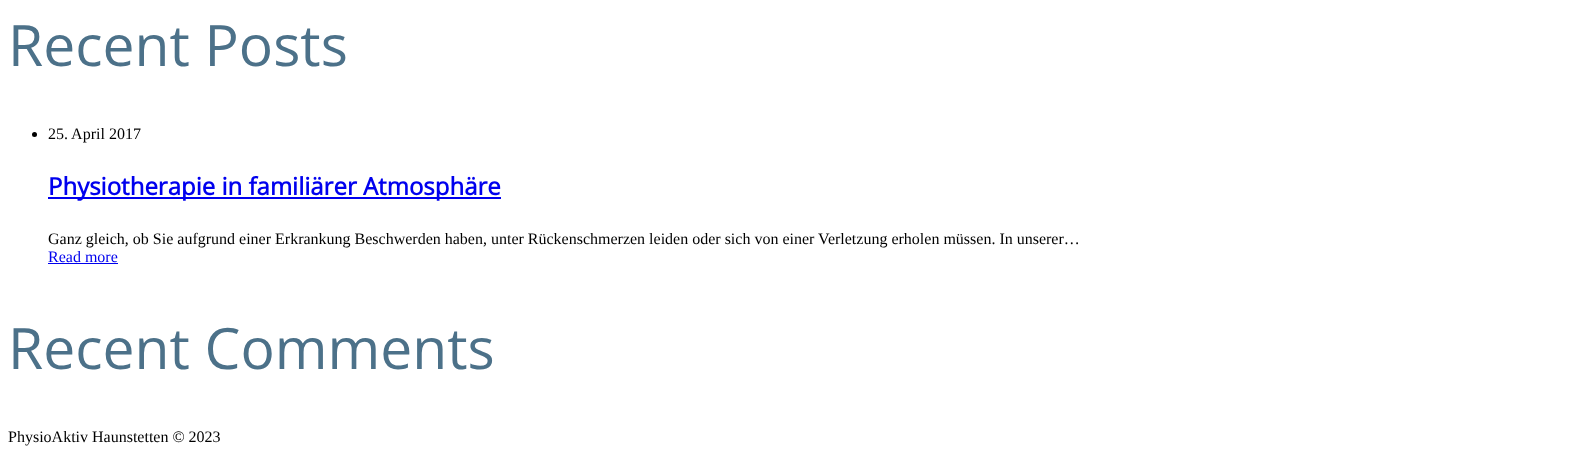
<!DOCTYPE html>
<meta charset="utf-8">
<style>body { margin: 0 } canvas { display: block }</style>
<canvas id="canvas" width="1572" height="462"></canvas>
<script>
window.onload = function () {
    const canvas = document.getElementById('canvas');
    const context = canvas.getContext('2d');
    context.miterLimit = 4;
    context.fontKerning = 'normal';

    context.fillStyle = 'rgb(255, 255, 255)';
    context.fillRect(0, 0, 1572, 462);
    context.fillStyle = 'rgb(0, 0, 0)';
    context.beginPath();
    context.arc(34.5, 134.5, 2.5, 0, 2 * Math.PI);
    context.fill();
    context.fillStyle = 'rgb(0, 0, 238)';
    context.fillRect(48, 197, 453, 2);
    context.fillRect(48, 263, 70, 1);
    context.font = '57px Open Sans';
    context.fillStyle = 'rgb(76, 113, 137)';
    context.fillText('Recent Posts', 8, 66);
    context.font = '16px Liberation Serif';
    context.fillStyle = 'rgb(0, 0, 0)';
    context.fillText('25. April 2017', 48, 139);
    context.font = 'bold 24px Open Sans';
    context.fillStyle = 'rgb(0, 0, 238)';
    context.fillText('Physiotherapie in familiärer Atmosphäre', 48, 195);
    context.font = '16px Liberation Serif';
    context.fillStyle = 'rgb(0, 0, 0)';
    context.fillText('Ganz gleich, ob Sie aufgrund einer Erkrankung Beschwerden haben, unter Rückenschmerzen leiden oder sich von einer Verletzung erholen müssen. In unserer…', 48, 244);
    context.fillStyle = 'rgb(0, 0, 238)';
    context.fillText('Read more', 48, 262);
    context.font = '57px Open Sans';
    context.fillStyle = 'rgb(76, 113, 137)';
    context.fillText('Recent Comments', 8, 369);
    context.font = '16px Liberation Serif';
    context.fillStyle = 'rgb(0, 0, 0)';
    context.fillText('PhysioAktiv Haunstetten © 2023', 8, 442);
};
</script>
